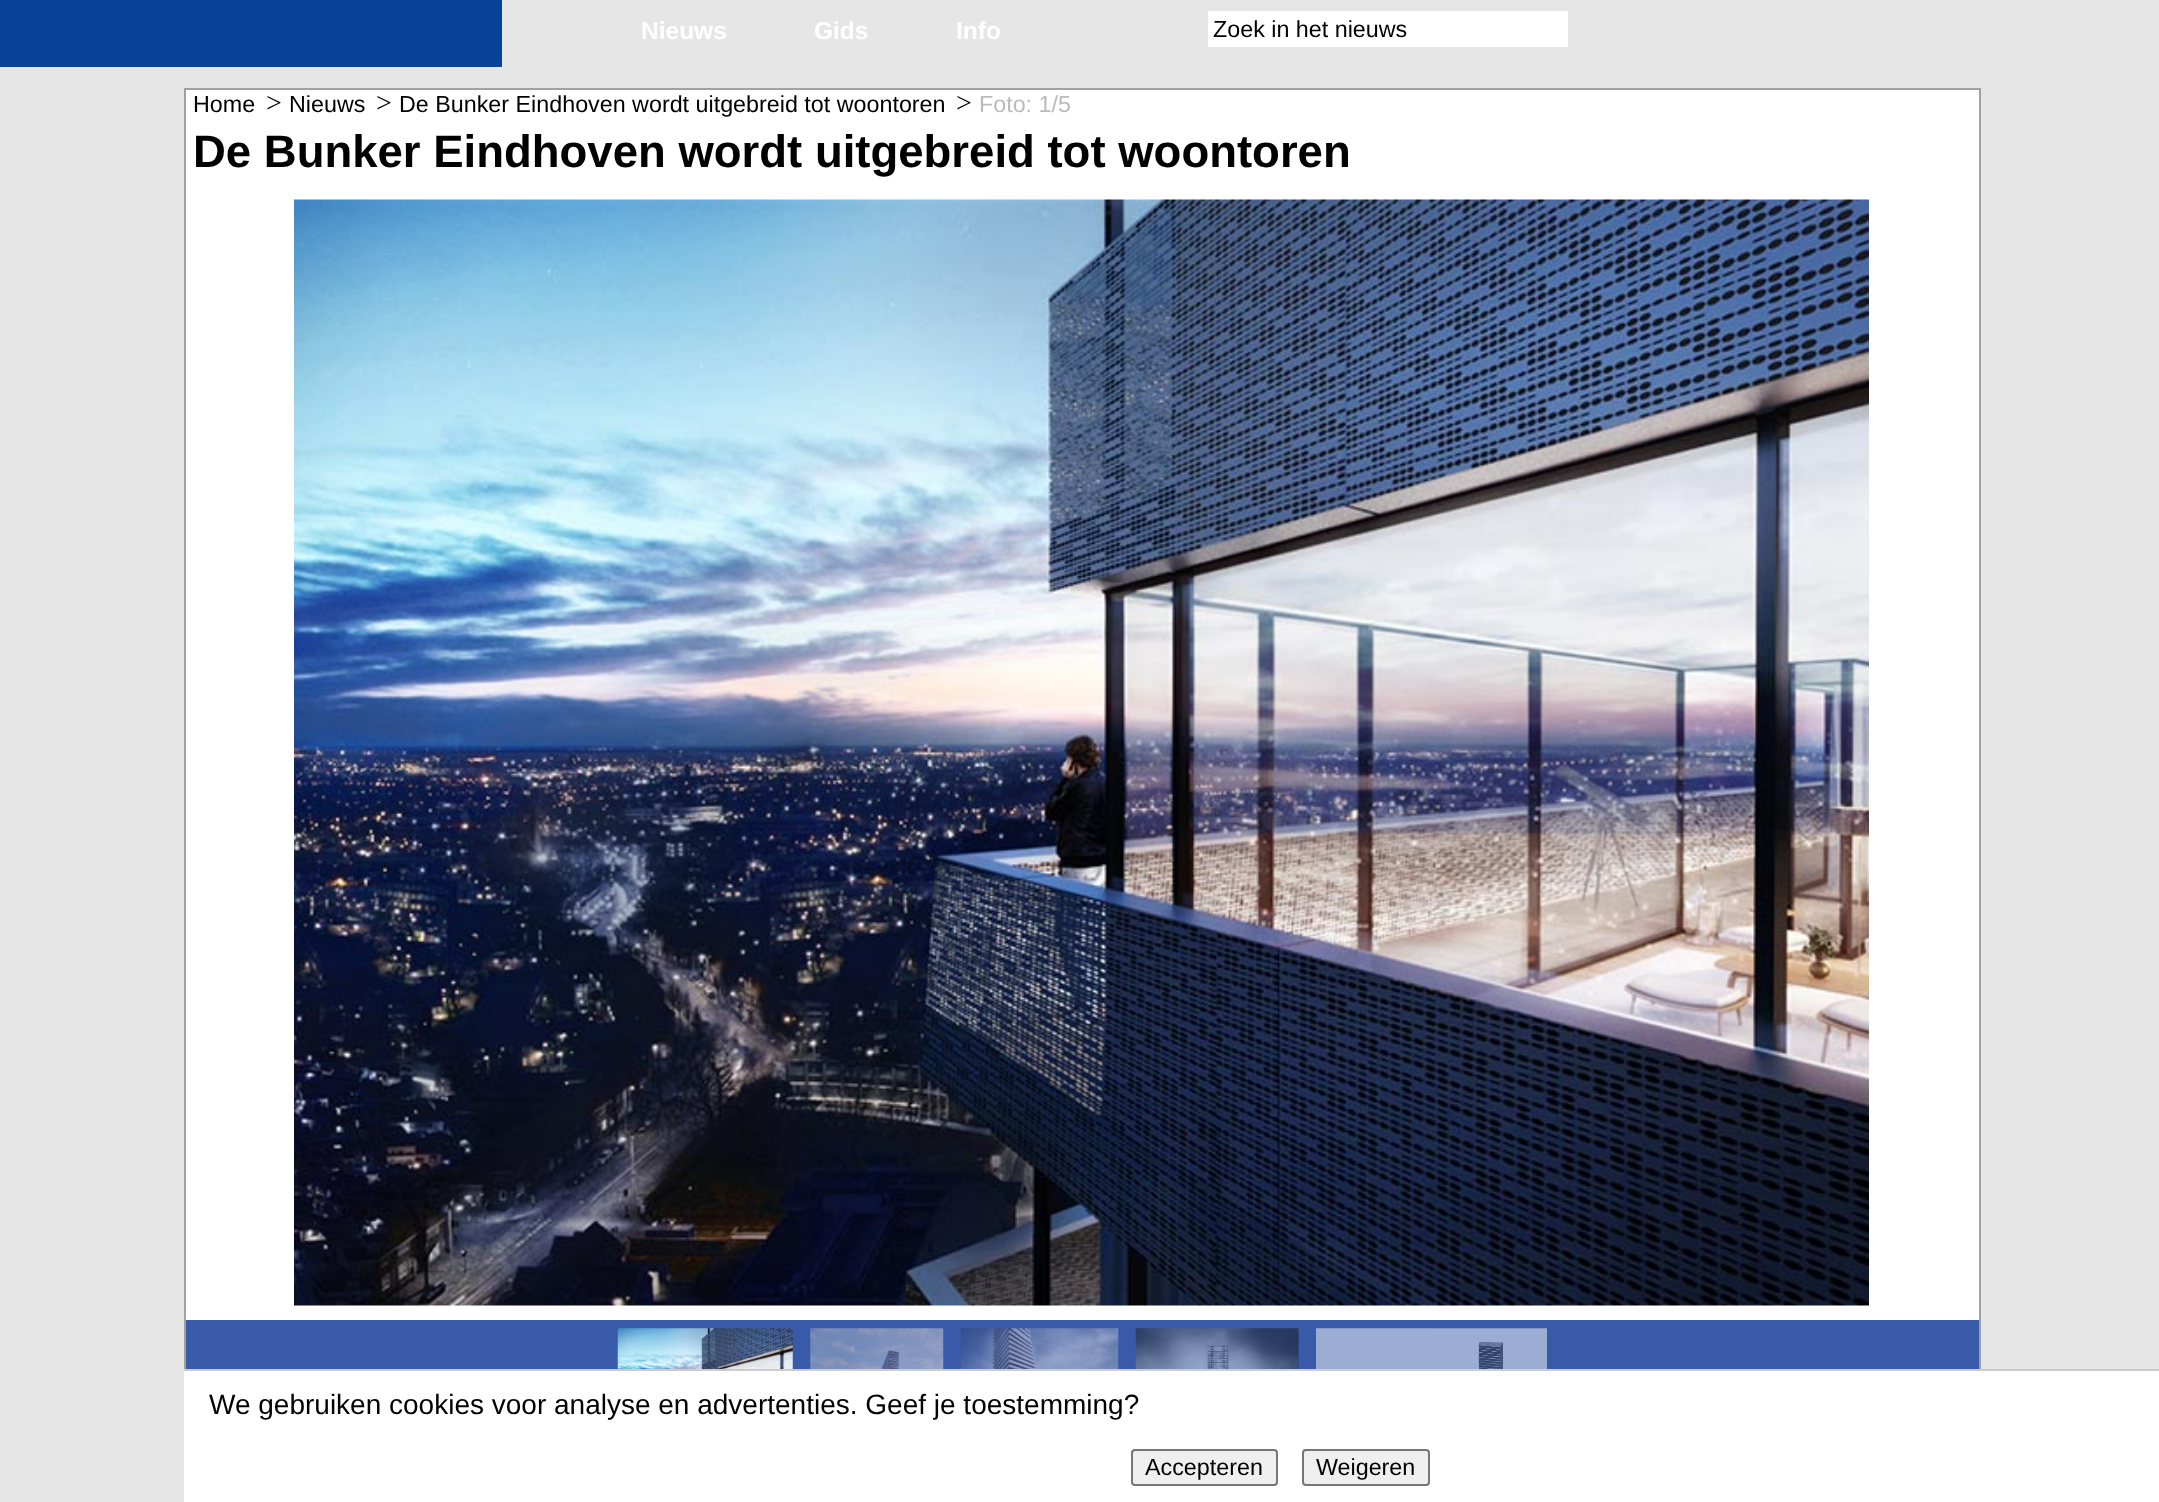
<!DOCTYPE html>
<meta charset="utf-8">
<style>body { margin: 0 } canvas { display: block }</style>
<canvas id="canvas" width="2159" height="1502"></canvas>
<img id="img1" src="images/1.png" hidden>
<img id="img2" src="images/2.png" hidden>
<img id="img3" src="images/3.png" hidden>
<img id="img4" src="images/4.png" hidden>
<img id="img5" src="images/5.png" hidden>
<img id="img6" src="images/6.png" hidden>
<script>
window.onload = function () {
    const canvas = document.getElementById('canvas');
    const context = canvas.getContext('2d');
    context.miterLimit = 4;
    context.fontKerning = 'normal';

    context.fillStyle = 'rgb(230, 230, 230)';
    context.fillRect(0, 0, 2159, 1502);
    context.fillStyle = 'rgb(9, 65, 151)';
    context.fillRect(0, 0, 502, 67);
    context.fillStyle = 'rgb(255, 255, 255)';
    context.fillRect(1208, 11, 360, 36);
    context.fillRect(186, 90, 1793, 1230);
    context.strokeStyle = 'rgb(161, 161, 161)';
    context.lineWidth = 2;
    context.strokeRect(185, 89, 1795, 1371);
    context.drawImage(document.getElementById('img1'), 294, 199, 1575, 1107);
    context.fillStyle = 'rgb(56, 90, 168)';
    context.fillRect(186, 1320, 1793, 49);
    context.drawImage(document.getElementById('img2'), 617, 1328, 176, 41);
    context.drawImage(document.getElementById('img3'), 810, 1328, 134, 41);
    context.drawImage(document.getElementById('img4'), 960, 1328, 159, 41);
    context.drawImage(document.getElementById('img5'), 1135, 1328, 164, 41);
    context.drawImage(document.getElementById('img6'), 1316, 1328, 231, 41);
    context.fillStyle = 'rgb(255, 255, 255)';
    context.fillRect(184, 1371, 1975, 131);
    context.fillStyle = 'rgb(204, 204, 204)';
    context.fillRect(184, 1369, 1975, 2);
    context.fillStyle = 'rgb(239, 239, 239)';
    context.beginPath();
    context.roundRect(1132, 1450, 145, 35, 3);
    context.fill();
    context.strokeStyle = 'rgb(118, 118, 118)';
    context.stroke();
    context.beginPath();
    context.roundRect(1303, 1450, 126, 35, 3);
    context.fill();
    context.stroke();
    context.font = 'bold 24.5px Liberation Sans';
    context.fillStyle = 'rgb(255, 255, 255)';
    context.fillText('Nieuws', 641, 39);
    context.fillText('Gids', 814, 39);
    context.fillText('Info', 956, 39);
    context.font = '23.3px Liberation Sans';
    context.fillStyle = 'rgb(0, 0, 0)';
    context.fillText('Zoek in het nieuws', 1213, 37);
    context.fillText('Home', 193, 112);
    context.font = '28px Liberation Serif';
    context.fillText('>', 266, 112);
    context.font = '23.3px Liberation Sans';
    context.fillText('Nieuws', 289, 112);
    context.font = '28px Liberation Serif';
    context.fillText('>', 376, 112);
    context.font = '23.3px Liberation Sans';
    context.fillText('De Bunker Eindhoven wordt uitgebreid tot woontoren', 399, 112);
    context.font = '28px Liberation Serif';
    context.fillText('>', 956, 112);
    context.font = '23.3px Liberation Sans';
    context.fillStyle = 'rgb(187, 187, 187)';
    context.fillText('Foto: 1/5', 979, 112);
    context.font = 'bold 45.5px Liberation Sans';
    context.fillStyle = 'rgb(0, 0, 0)';
    context.fillText('De Bunker Eindhoven wordt uitgebreid tot woontoren', 193, 167);
    context.font = '28px Liberation Sans';
    context.fillText('We gebruiken cookies voor analyse en advertenties. Geef je toestemming?', 209, 1414);
    context.font = '23.3px Liberation Sans';
    context.fillText('Accepteren', 1145, 1475);
    context.fillText('Weigeren', 1316, 1475);
};
</script>
